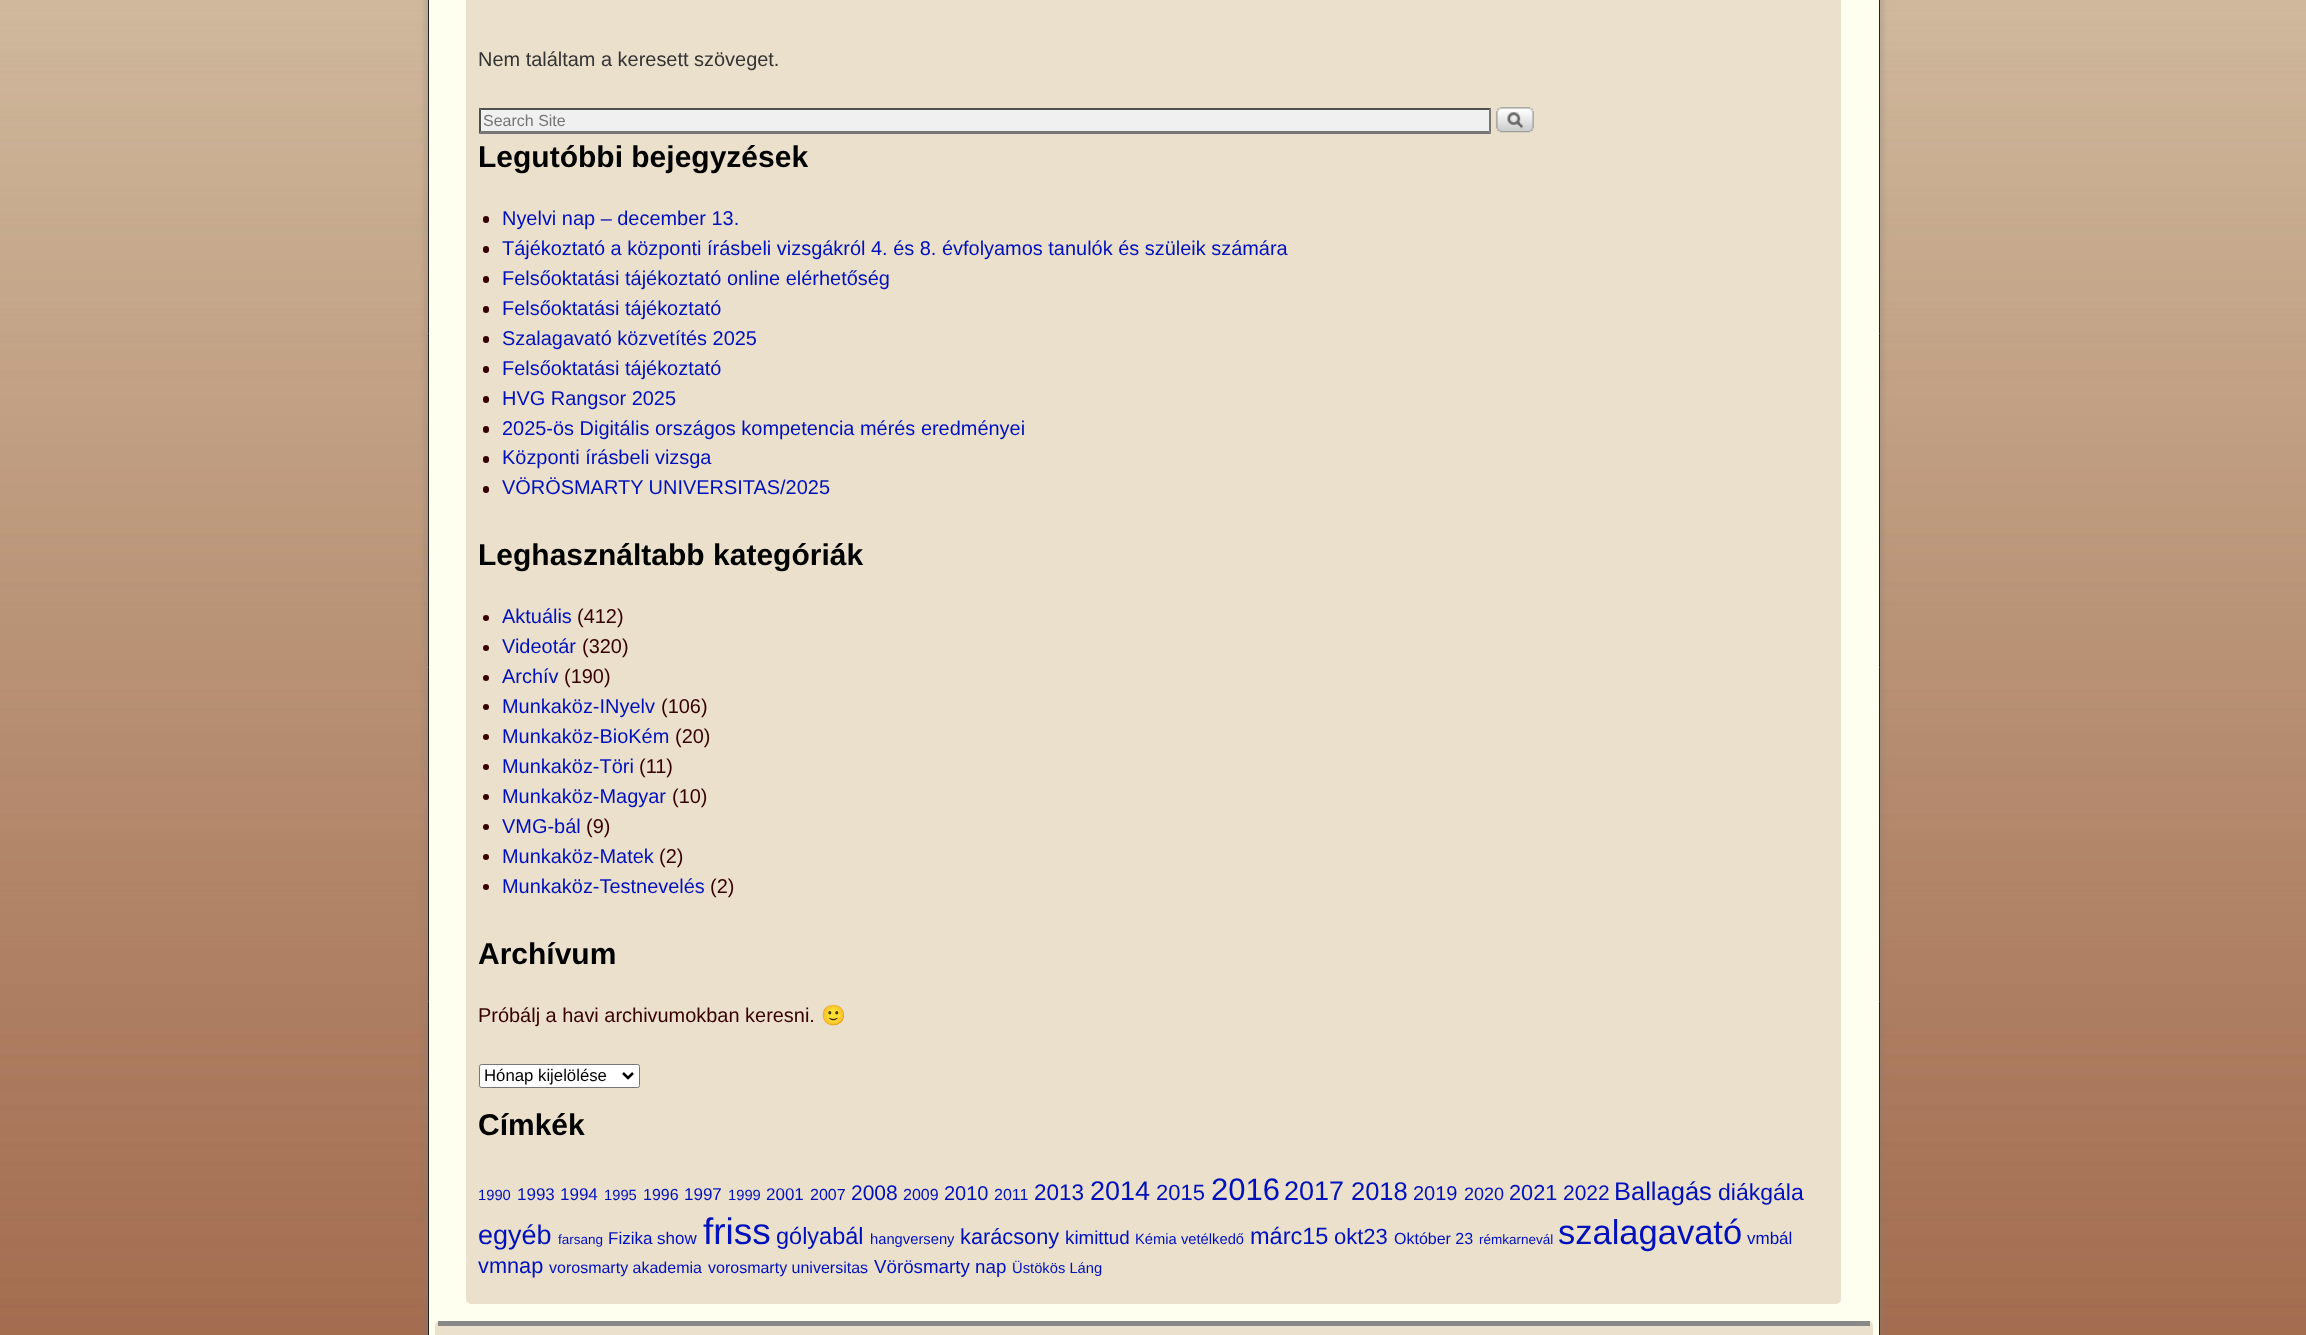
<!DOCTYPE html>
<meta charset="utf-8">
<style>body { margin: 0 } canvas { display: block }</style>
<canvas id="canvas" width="2306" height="1335"></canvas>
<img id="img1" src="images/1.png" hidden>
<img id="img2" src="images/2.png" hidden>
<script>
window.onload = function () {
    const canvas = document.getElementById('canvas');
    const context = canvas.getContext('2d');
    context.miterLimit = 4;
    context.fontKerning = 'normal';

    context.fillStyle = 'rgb(255, 255, 255)';
    context.fillRect(0, 0, 2306, 1335);
    context.drawImage(document.getElementById('img1'), 0, 0, 2306, 1335);
    context.fillStyle = 'rgba(127, 127, 127, 0.25)';
    context.filter = 'blur(2px)';
    context.beginPath();
    context.roundRect(424, -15, 1460, 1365, 9);
    context.fill();
    context.filter = 'none';
    context.fillStyle = 'rgb(255, 255, 240)';
    context.beginPath();
    context.rect(428.5, -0.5, 1451, 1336);
    context.fill();
    context.strokeStyle = 'rgb(34, 34, 34)';
    context.stroke();
    context.fillStyle = 'rgb(235, 224, 204)';
    context.beginPath();
    context.roundRect(466, -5, 1375, 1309, 5);
    context.fill();
    context.fillStyle = 'rgb(240, 240, 240)';
    context.fillRect(479, 108, 1012, 26);
    context.fillStyle = 'rgb(79, 79, 79)';
    context.beginPath();
    context.moveTo(479, 108);
    context.lineTo(1491, 108);
    context.lineTo(1489, 110);
    context.lineTo(481, 110);
    context.closePath();
    context.fill();
    context.fillStyle = 'rgb(118, 118, 118)';
    context.beginPath();
    context.moveTo(1491, 107.5);
    context.lineTo(1491, 134);
    context.lineTo(1489, 131);
    context.lineTo(1489, 110);
    context.closePath();
    context.fill();
    context.beginPath();
    context.moveTo(1491, 134);
    context.lineTo(479, 134);
    context.lineTo(481, 131);
    context.lineTo(1489, 131);
    context.closePath();
    context.fill();
    context.fillStyle = 'rgb(79, 79, 79)';
    context.beginPath();
    context.moveTo(479, 134);
    context.lineTo(479, 107.5);
    context.lineTo(481, 110);
    context.lineTo(481, 131);
    context.closePath();
    context.fill();
    context.drawImage(document.getElementById('img2'), 1496, 107, 38, 26);
    context.fillStyle = 'rgb(54, 0, 0)';
    context.beginPath();
    context.roundRect(483, 216, 6, 7, 3);
    context.fill();
    context.beginPath();
    context.roundRect(483, 246, 6, 7, 3);
    context.fill();
    context.beginPath();
    context.roundRect(483, 276, 6, 7, 3);
    context.fill();
    context.beginPath();
    context.roundRect(483, 306, 6, 7, 3);
    context.fill();
    context.beginPath();
    context.roundRect(483, 336, 6, 7, 3);
    context.fill();
    context.beginPath();
    context.roundRect(483, 366, 6, 7, 3);
    context.fill();
    context.beginPath();
    context.roundRect(483, 396, 6, 7, 3);
    context.fill();
    context.beginPath();
    context.roundRect(483, 426, 6, 7, 3);
    context.fill();
    context.beginPath();
    context.roundRect(483, 456, 6, 7, 3);
    context.fill();
    context.beginPath();
    context.roundRect(483, 486, 6, 7, 3);
    context.fill();
    context.beginPath();
    context.arc(486, 618, 3, 0, 2 * Math.PI);
    context.fill();
    context.beginPath();
    context.arc(486, 648, 3, 0, 2 * Math.PI);
    context.fill();
    context.beginPath();
    context.arc(486, 678, 3, 0, 2 * Math.PI);
    context.fill();
    context.beginPath();
    context.arc(486, 707, 3, 0, 2 * Math.PI);
    context.fill();
    context.beginPath();
    context.arc(486, 737, 3, 0, 2 * Math.PI);
    context.fill();
    context.beginPath();
    context.arc(486, 767, 3, 0, 2 * Math.PI);
    context.fill();
    context.beginPath();
    context.arc(486, 797, 3, 0, 2 * Math.PI);
    context.fill();
    context.beginPath();
    context.arc(486, 827, 3, 0, 2 * Math.PI);
    context.fill();
    context.beginPath();
    context.arc(486, 857, 3, 0, 2 * Math.PI);
    context.fill();
    context.beginPath();
    context.arc(486, 887, 3, 0, 2 * Math.PI);
    context.fill();
    context.fillStyle = 'rgb(255, 255, 255)';
    context.beginPath();
    context.roundRect(479.5, 1064.5, 160, 23, 2);
    context.fill();
    context.strokeStyle = 'rgb(118, 118, 118)';
    context.stroke();
    context.beginPath();
    context.moveTo(623, 1073);
    context.lineTo(628, 1078);
    context.lineTo(633, 1073);
    context.strokeStyle = 'rgb(0, 0, 0)';
    context.lineWidth = 2.5;
    context.stroke();
    context.fillStyle = 'rgb(235, 224, 204)';
    context.beginPath();
    context.roundRect(435, 1321, 1438, 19, 5);
    context.fill();
    context.fillStyle = 'rgb(136, 136, 136)';
    context.fillRect(438, 1321, 1432, 5);
    context.font = '19.95px Liberation Sans';
    context.fillStyle = 'rgb(51, 51, 51)';
    context.fillText('Nem találtam a keresett szöveget.', 478, 66);
    context.font = '16px Liberation Sans';
    context.fillStyle = 'rgb(117, 117, 117)';
    context.fillText('Search Site', 483, 126);
    context.font = 'bold 30px Liberation Sans';
    context.fillStyle = 'rgb(0, 0, 0)';
    context.fillText('Legutóbbi bejegyzések', 478, 167);
    context.font = '19.95px Liberation Sans';
    context.fillStyle = 'rgb(0, 17, 187)';
    context.fillText('Nyelvi nap – december 13.', 502, 225);
    context.fillText('Tájékoztató a központi írásbeli vizsgákról 4. és 8. évfolyamos tanulók és szüleik számára', 502, 255);
    context.fillText('Felsőoktatási tájékoztató online elérhetőség', 502, 285);
    context.fillText('Felsőoktatási tájékoztató', 502, 315);
    context.fillText('Szalagavató közvetítés 2025', 502, 345);
    context.fillText('Felsőoktatási tájékoztató', 502, 375);
    context.fillText('HVG Rangsor 2025', 502, 405);
    context.fillText('2025-ös Digitális országos kompetencia mérés eredményei', 502, 435);
    context.fillText('Központi írásbeli vizsga', 502, 464);
    context.fillText('VÖRÖSMARTY UNIVERSITAS/2025', 502, 494);
    context.font = 'bold 30px Liberation Sans';
    context.fillStyle = 'rgb(0, 0, 0)';
    context.fillText('Leghasználtabb kategóriák', 478, 565);
    context.font = '19.95px Liberation Sans';
    context.fillStyle = 'rgb(0, 17, 187)';
    context.fillText('Aktuális', 502, 623);
    context.fillStyle = 'rgb(54, 0, 0)';
    context.fillText('(412)', 577, 623);
    context.fillStyle = 'rgb(0, 17, 187)';
    context.fillText('Videotár', 502, 653);
    context.fillStyle = 'rgb(54, 0, 0)';
    context.fillText('(320)', 582, 653);
    context.fillStyle = 'rgb(0, 17, 187)';
    context.fillText('Archív', 502, 683);
    context.fillStyle = 'rgb(54, 0, 0)';
    context.fillText('(190)', 564, 683);
    context.fillStyle = 'rgb(0, 17, 187)';
    context.fillText('Munkaköz-INyelv', 502, 713);
    context.fillStyle = 'rgb(54, 0, 0)';
    context.fillText('(106)', 661, 713);
    context.fillStyle = 'rgb(0, 17, 187)';
    context.fillText('Munkaköz-BioKém', 502, 743);
    context.fillStyle = 'rgb(54, 0, 0)';
    context.fillText('(20)', 675, 743);
    context.fillStyle = 'rgb(0, 17, 187)';
    context.fillText('Munkaköz-Töri', 502, 773);
    context.fillStyle = 'rgb(54, 0, 0)';
    context.fillText('(11)', 639, 773);
    context.fillStyle = 'rgb(0, 17, 187)';
    context.fillText('Munkaköz-Magyar', 502, 803);
    context.fillStyle = 'rgb(54, 0, 0)';
    context.fillText('(10)', 672, 803);
    context.fillStyle = 'rgb(0, 17, 187)';
    context.fillText('VMG-bál', 502, 833);
    context.fillStyle = 'rgb(54, 0, 0)';
    context.fillText('(9)', 586, 833);
    context.fillStyle = 'rgb(0, 17, 187)';
    context.fillText('Munkaköz-Matek', 502, 863);
    context.fillStyle = 'rgb(54, 0, 0)';
    context.fillText('(2)', 659, 863);
    context.fillStyle = 'rgb(0, 17, 187)';
    context.fillText('Munkaköz-Testnevelés', 502, 893);
    context.fillStyle = 'rgb(54, 0, 0)';
    context.fillText('(2)', 710, 893);
    context.font = 'bold 30px Liberation Sans';
    context.fillStyle = 'rgb(0, 0, 0)';
    context.fillText('Archívum', 478, 964);
    context.font = '19.95px Liberation Sans';
    context.fillStyle = 'rgb(54, 0, 0)';
    context.fillText('Próbálj a havi archivumokban keresni.', 478, 1022);
    context.font = '19.95px Noto Color Emoji';
    context.fillText('🙂', 821, 1022);
    context.font = '16.75px Liberation Sans';
    context.fillStyle = 'rgb(0, 0, 0)';
    context.fillText('Hónap kijelölése', 484, 1081);
    context.font = 'bold 30px Liberation Sans';
    context.fillText('Címkék', 478, 1135);
    context.font = '14.75px Liberation Sans';
    context.fillStyle = 'rgb(0, 17, 187)';
    context.fillText('1990', 478, 1200);
    context.font = '17px Liberation Sans';
    context.fillText('1993', 517, 1200);
    context.fillText('1994', 560, 1200);
    context.font = '14.75px Liberation Sans';
    context.fillText('1995', 604, 1200);
    context.font = '16px Liberation Sans';
    context.fillText('1996', 643, 1200);
    context.font = '17px Liberation Sans';
    context.fillText('1997', 684, 1200);
    context.font = '14.75px Liberation Sans';
    context.fillText('1999', 728, 1200);
    context.font = '17px Liberation Sans';
    context.fillText('2001', 766, 1200);
    context.font = '16px Liberation Sans';
    context.fillText('2007', 810, 1200);
    context.font = '21px Liberation Sans';
    context.fillText('2008', 851, 1200);
    context.font = '16px Liberation Sans';
    context.fillText('2009', 903, 1200);
    context.font = '20px Liberation Sans';
    context.fillText('2010', 944, 1200);
    context.font = '16px Liberation Sans';
    context.fillText('2011', 994, 1200);
    context.font = '22.5px Liberation Sans';
    context.fillText('2013', 1034, 1200);
    context.font = '27px Liberation Sans';
    context.fillText('2014', 1090, 1200);
    context.font = '22px Liberation Sans';
    context.fillText('2015', 1156, 1200);
    context.font = '31px Liberation Sans';
    context.fillText('2016', 1211, 1200);
    context.font = '27px Liberation Sans';
    context.fillText('2017', 1284, 1200);
    context.font = '25.5px Liberation Sans';
    context.fillText('2018', 1351, 1200);
    context.font = '20px Liberation Sans';
    context.fillText('2019', 1413, 1200);
    context.font = '18px Liberation Sans';
    context.fillText('2020', 1464, 1200);
    context.font = '21.75px Liberation Sans';
    context.fillText('2021', 1509, 1200);
    context.font = '21px Liberation Sans';
    context.fillText('2022', 1563, 1200);
    context.font = '25.5px Liberation Sans';
    context.fillText('Ballagás', 1614, 1200);
    context.font = '23px Liberation Sans';
    context.fillText('diákgála', 1718, 1200);
    context.font = '27px Liberation Sans';
    context.fillText('egyéb', 478, 1244);
    context.font = '13.5px Liberation Sans';
    context.fillText('farsang', 558, 1244);
    context.font = '17px Liberation Sans';
    context.fillText('Fizika show', 608, 1244);
    context.font = '37px Liberation Sans';
    context.fillText('friss', 703, 1244);
    context.font = '23.5px Liberation Sans';
    context.fillText('gólyabál', 776, 1244);
    context.font = '14.75px Liberation Sans';
    context.fillText('hangverseny', 870, 1244);
    context.font = '21.75px Liberation Sans';
    context.fillText('karácsony', 960, 1244);
    context.font = '18.75px Liberation Sans';
    context.fillText('kimittud', 1065, 1244);
    context.font = '14.75px Liberation Sans';
    context.fillText('Kémia vetélkedő', 1135, 1244);
    context.font = '23.5px Liberation Sans';
    context.fillText('márc15', 1250, 1244);
    context.font = '22px Liberation Sans';
    context.fillText('okt23', 1334, 1244);
    context.font = '16px Liberation Sans';
    context.fillText('Október 23', 1394, 1244);
    context.font = '13.5px Liberation Sans';
    context.fillText('rémkarnevál', 1479, 1244);
    context.font = '34.5px Liberation Sans';
    context.fillText('szalagavató', 1558, 1244);
    context.font = '17px Liberation Sans';
    context.fillText('vmbál', 1747, 1244);
    context.font = '21.75px Liberation Sans';
    context.fillText('vmnap', 478, 1273);
    context.font = '16px Liberation Sans';
    context.fillText('vorosmarty akademia', 549, 1273);
    context.fillText('vorosmarty universitas', 708, 1273);
    context.font = '18.75px Liberation Sans';
    context.fillText('Vörösmarty nap', 874, 1273);
    context.font = '14.75px Liberation Sans';
    context.fillText('Üstökös Láng', 1012, 1273);
};
</script>
